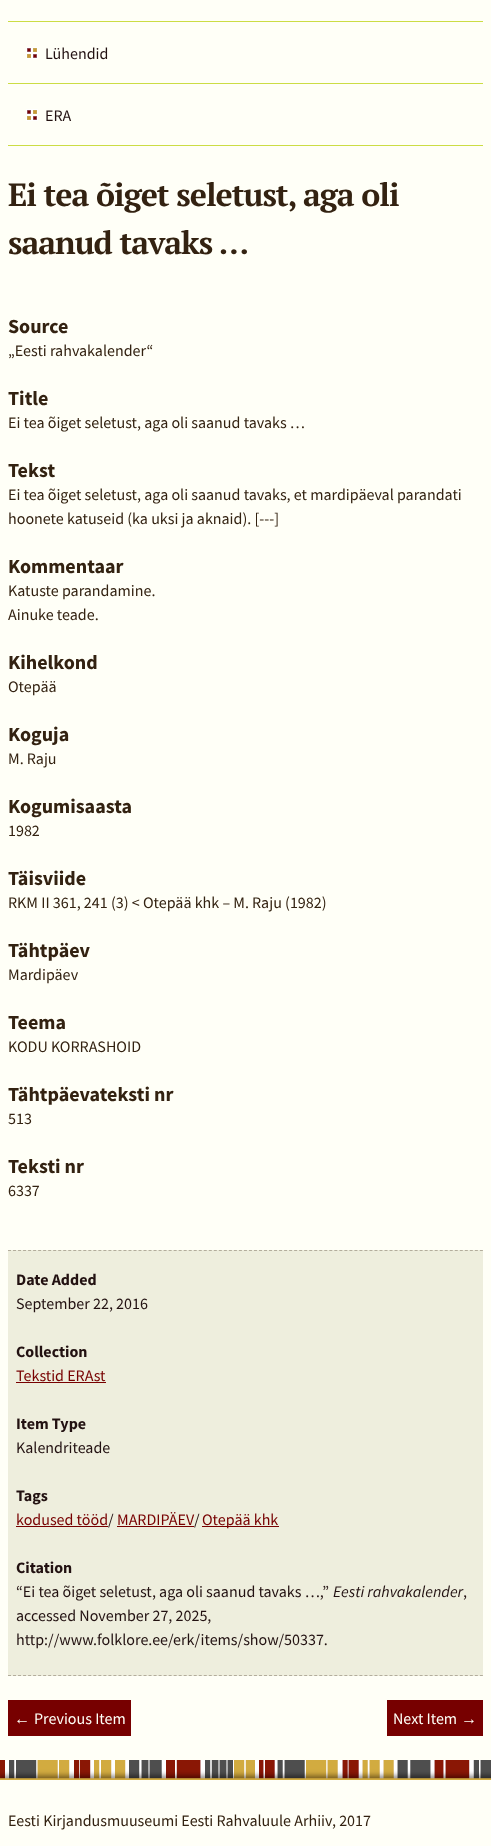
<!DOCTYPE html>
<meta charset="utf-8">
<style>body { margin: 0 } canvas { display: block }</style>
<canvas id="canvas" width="491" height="1846"></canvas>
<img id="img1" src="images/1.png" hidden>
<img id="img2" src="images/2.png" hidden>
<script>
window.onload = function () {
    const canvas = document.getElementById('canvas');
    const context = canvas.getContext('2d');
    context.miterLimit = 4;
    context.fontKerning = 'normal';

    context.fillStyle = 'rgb(255, 255, 247)';
    context.fillRect(0, 0, 491, 1846);
    context.fillStyle = 'rgb(204, 221, 68)';
    context.fillRect(8, 21, 475, 1);
    context.fillRect(8, 83, 475, 1);
    context.drawImage(document.getElementById('img1'), 26, 47, 12, 12);
    context.fillRect(8, 145, 475, 1);
    context.drawImage(document.getElementById('img1'), 26, 109, 12, 12);
    context.fillStyle = 'rgb(238, 238, 221)';
    context.fillRect(8, 1250, 475, 426);
    context.beginPath();
    context.moveTo(8, 1250.5);
    context.lineTo(483, 1250.5);
    context.strokeStyle = 'rgb(179, 173, 156)';
    context.setLineDash([3, 2.02]);
    context.stroke();
    context.beginPath();
    context.moveTo(8, 1675.5);
    context.lineTo(483, 1675.5);
    context.stroke();
    context.fillStyle = 'rgb(119, 0, 0)';
    context.fillRect(16, 1382, 90, 1);
    context.fillRect(16, 1526, 92, 1);
    context.fillRect(117, 1526, 77, 1);
    context.fillRect(202, 1526, 77, 1);
    context.fillRect(8, 1700, 123, 36);
    context.fillRect(387, 1700, 96, 36);
    context.drawImage(document.getElementById('img2'), 0, 1760, 491, 20);
    context.font = '16px Source Sans Pro';
    context.fillStyle = 'rgb(34, 17, 17)';
    context.fillText('Lühendid', 45, 59);
    context.fillText('ERA', 45, 121);
    context.letterSpacing = '-1px';
    context.font = 'bold 32px PT Serif';
    context.fillStyle = 'rgb(51, 34, 17)';
    context.fillText('Ei tea õiget seletust, aga oli', 8, 206);
    context.fillText('saanud tavaks …', 8, 254);
    context.letterSpacing = '0px';
    context.font = 'bold 20px Source Sans Pro';
    context.fillText('Source', 8, 333);
    context.font = '16px Source Sans Pro';
    context.fillText('„Eesti rahvakalender“', 8, 356);
    context.font = 'bold 20px Source Sans Pro';
    context.fillText('Title', 8, 405);
    context.font = '16px Source Sans Pro';
    context.fillText('Ei tea õiget seletust, aga oli saanud tavaks …', 8, 428);
    context.font = 'bold 20px Source Sans Pro';
    context.fillText('Tekst', 8, 477);
    context.font = '16px Source Sans Pro';
    context.fillText('Ei tea õiget seletust, aga oli saanud tavaks, et mardipäeval parandati', 8, 500);
    context.fillText('hoonete katuseid (ka uksi ja aknaid). [---]', 8, 524);
    context.font = 'bold 20px Source Sans Pro';
    context.fillText('Kommentaar', 8, 573);
    context.font = '16px Source Sans Pro';
    context.fillText('Katuste parandamine.', 8, 596);
    context.fillText('Ainuke teade.', 8, 620);
    context.font = 'bold 20px Source Sans Pro';
    context.fillText('Kihelkond', 8, 669);
    context.font = '16px Source Sans Pro';
    context.fillText('Otepää', 8, 692);
    context.font = 'bold 20px Source Sans Pro';
    context.fillText('Koguja', 8, 741);
    context.font = '16px Source Sans Pro';
    context.fillText('M. Raju', 8, 764);
    context.font = 'bold 20px Source Sans Pro';
    context.fillText('Kogumisaasta', 8, 813);
    context.font = '16px Source Sans Pro';
    context.fillText('1982', 8, 836);
    context.font = 'bold 20px Source Sans Pro';
    context.fillText('Täisviide', 8, 885);
    context.font = '16px Source Sans Pro';
    context.fillText('RKM II 361, 241 (3) < Otepää khk – M. Raju (1982)', 8, 908);
    context.font = 'bold 20px Source Sans Pro';
    context.fillText('Tähtpäev', 8, 957);
    context.font = '16px Source Sans Pro';
    context.fillText('Mardipäev', 8, 980);
    context.font = 'bold 20px Source Sans Pro';
    context.fillText('Teema', 8, 1029);
    context.font = '16px Source Sans Pro';
    context.fillText('KODU KORRASHOID', 8, 1052);
    context.font = 'bold 20px Source Sans Pro';
    context.fillText('Tähtpäevateksti nr', 8, 1101);
    context.font = '16px Source Sans Pro';
    context.fillText('513', 8, 1124);
    context.font = 'bold 20px Source Sans Pro';
    context.fillText('Teksti nr', 8, 1173);
    context.font = '16px Source Sans Pro';
    context.fillText('6337', 8, 1196);
    context.font = 'bold 16px Source Sans Pro';
    context.fillStyle = 'rgb(34, 17, 17)';
    context.fillText('Date Added', 16, 1285);
    context.font = '16px Source Sans Pro';
    context.fillText('September 22, 2016', 16, 1309);
    context.font = 'bold 16px Source Sans Pro';
    context.fillText('Collection', 16, 1357);
    context.font = '16px Source Sans Pro';
    context.fillStyle = 'rgb(119, 0, 0)';
    context.fillText('Tekstid ERAst', 16, 1381);
    context.font = 'bold 16px Source Sans Pro';
    context.fillStyle = 'rgb(34, 17, 17)';
    context.fillText('Item Type', 16, 1429);
    context.font = '16px Source Sans Pro';
    context.fillText('Kalendriteade', 16, 1453);
    context.font = 'bold 16px Source Sans Pro';
    context.fillText('Tags', 16, 1501);
    context.font = '16px Source Sans Pro';
    context.fillStyle = 'rgb(119, 0, 0)';
    context.fillText('kodused tööd', 16, 1525);
    context.fillStyle = 'rgb(34, 17, 17)';
    context.fillText('/', 108, 1525);
    context.fillStyle = 'rgb(119, 0, 0)';
    context.fillText('MARDIPÄEV', 117, 1525);
    context.fillStyle = 'rgb(34, 17, 17)';
    context.fillText('/', 194, 1525);
    context.fillStyle = 'rgb(119, 0, 0)';
    context.fillText('Otepää khk', 202, 1525);
    context.font = 'bold 16px Source Sans Pro';
    context.fillStyle = 'rgb(34, 17, 17)';
    context.fillText('Citation', 16, 1573);
    context.font = '16px Source Sans Pro';
    context.fillText('“Ei tea õiget seletust, aga oli saanud tavaks …,”', 16, 1597);
    context.font = 'italic 16px Source Sans Pro';
    context.fillText('Eesti rahvakalender', 333, 1597);
    context.font = '16px Source Sans Pro';
    context.fillText(',', 463, 1597);
    context.fillText('accessed November 27, 2025,', 16, 1621);
    context.fillText('http://www.folklore.ee/erk/items/show/50337.', 16, 1645);
    context.font = '16px Liberation Sans';
    context.fillStyle = 'rgb(255, 255, 247)';
    context.fillText('←', 14, 1724);
    context.font = '16px Source Sans Pro';
    context.fillText('Previous Item', 34, 1724);
    context.fillText('Next Item', 393, 1724);
    context.font = '16px Liberation Sans';
    context.fillText('→', 461, 1724);
    context.font = '16px Source Sans Pro';
    context.fillStyle = 'rgb(51, 34, 17)';
    context.fillText('Eesti Kirjandusmuuseumi Eesti Rahvaluule Arhiiv, 2017', 8, 1826);
};
</script>
